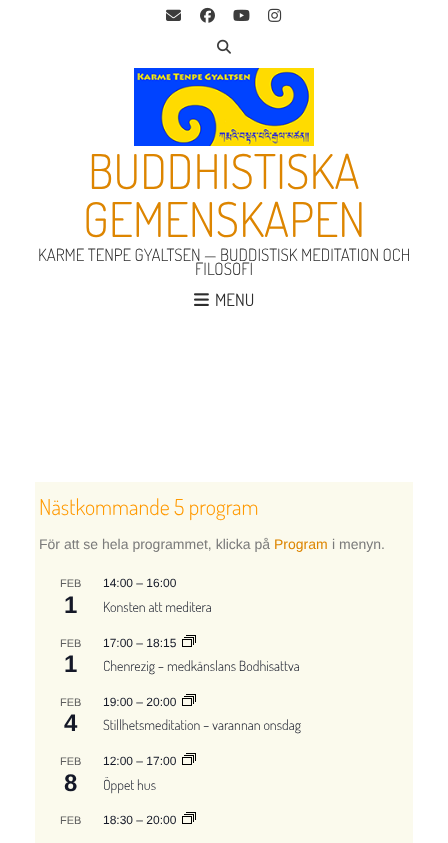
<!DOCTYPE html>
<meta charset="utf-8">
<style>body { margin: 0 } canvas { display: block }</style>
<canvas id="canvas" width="448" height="843"></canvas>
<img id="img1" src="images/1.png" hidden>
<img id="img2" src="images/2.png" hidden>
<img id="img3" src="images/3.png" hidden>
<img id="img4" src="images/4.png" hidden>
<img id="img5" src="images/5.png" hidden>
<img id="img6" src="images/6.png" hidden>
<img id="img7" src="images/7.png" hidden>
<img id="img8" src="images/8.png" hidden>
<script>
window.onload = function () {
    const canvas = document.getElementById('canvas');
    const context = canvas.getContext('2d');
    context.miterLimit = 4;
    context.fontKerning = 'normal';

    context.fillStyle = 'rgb(255, 255, 255)';
    context.fillRect(0, 0, 448, 843);
    context.drawImage(document.getElementById('img1'), 166, 9, 15, 12);
    context.drawImage(document.getElementById('img2'), 200, 7, 15, 16);
    context.drawImage(document.getElementById('img3'), 233, 9, 17, 12);
    context.drawImage(document.getElementById('img4'), 268, 8, 14, 14);
    context.drawImage(document.getElementById('img5'), 217, 39, 14, 15);
    context.drawImage(document.getElementById('img6'), 134, 68, 180, 78);
    context.drawImage(document.getElementById('img7'), 194, 293, 15, 13);
    context.fillStyle = 'rgb(251, 250, 237)';
    context.fillRect(35, 482, 378, 361);
    context.drawImage(document.getElementById('img8'), 182, 635, 14, 12);
    context.drawImage(document.getElementById('img8'), 182, 694, 14, 12);
    context.drawImage(document.getElementById('img8'), 182, 753, 14, 12);
    context.drawImage(document.getElementById('img8'), 182, 812, 14, 12);
    context.font = '300 48px Dosis';
    context.fillStyle = 'rgb(221, 133, 0)';
    context.fillText('BUDDHISTISKA', 88, 189);
    context.fillText('GEMENSKAPEN', 83, 237);
    context.font = '300 17px Dosis';
    context.fillStyle = 'rgb(45, 45, 45)';
    context.fillText('KARME TENPE GYALTSEN — BUDDISTISK MEDITATION OCH', 38, 261);
    context.fillText('FILOSOFI', 195, 275);
    context.font = '17px Dosis';
    context.fillText('MENU', 215, 306);
    context.font = '300 22px Dosis';
    context.fillStyle = 'rgb(255, 153, 0)';
    context.fillText('Nästkommande 5 program', 39, 515);
    context.font = '14px Liberation Sans';
    context.fillStyle = 'rgb(122, 122, 122)';
    context.fillText('För att se hela programmet, klicka på', 39, 549);
    context.fillStyle = 'rgb(221, 133, 0)';
    context.fillText('Program', 274, 549);
    context.fillStyle = 'rgb(122, 122, 122)';
    context.fillText('i menyn.', 332, 549);
    context.font = '11px Liberation Sans';
    context.fillStyle = 'rgb(93, 93, 93)';
    context.fillText('FEB', 60, 587);
    context.font = 'bold 24px Liberation Sans';
    context.fillStyle = 'rgb(20, 24, 39)';
    context.fillText('1', 64, 613);
    context.font = '12px Liberation Sans';
    context.fillText('14:00 – 16:00', 103, 587);
    context.font = '300 14px Dosis';
    context.fillText('Konsten att meditera', 103, 612);
    context.font = '11px Liberation Sans';
    context.fillStyle = 'rgb(93, 93, 93)';
    context.fillText('FEB', 60, 647);
    context.font = 'bold 24px Liberation Sans';
    context.fillStyle = 'rgb(20, 24, 39)';
    context.fillText('1', 64, 672);
    context.font = '12px Liberation Sans';
    context.fillText('17:00 – 18:15', 103, 647);
    context.font = '300 14px Dosis';
    context.fillText('Chenrezig – medkänslans Bodhisattva', 103, 671);
    context.font = '11px Liberation Sans';
    context.fillStyle = 'rgb(93, 93, 93)';
    context.fillText('FEB', 60, 706);
    context.font = 'bold 24px Liberation Sans';
    context.fillStyle = 'rgb(20, 24, 39)';
    context.fillText('4', 64, 731);
    context.font = '12px Liberation Sans';
    context.fillText('19:00 – 20:00', 103, 706);
    context.font = '300 14px Dosis';
    context.fillText('Stillhetsmeditation – varannan onsdag', 103, 730);
    context.font = '11px Liberation Sans';
    context.fillStyle = 'rgb(93, 93, 93)';
    context.fillText('FEB', 60, 765);
    context.font = 'bold 24px Liberation Sans';
    context.fillStyle = 'rgb(20, 24, 39)';
    context.fillText('8', 64, 791);
    context.font = '12px Liberation Sans';
    context.fillText('12:00 – 17:00', 103, 765);
    context.font = '300 14px Dosis';
    context.fillText('Öppet hus', 103, 790);
    context.font = '11px Liberation Sans';
    context.fillStyle = 'rgb(93, 93, 93)';
    context.fillText('FEB', 60, 824);
    context.font = '12px Liberation Sans';
    context.fillStyle = 'rgb(20, 24, 39)';
    context.fillText('18:30 – 20:00', 103, 824);
};
</script>
